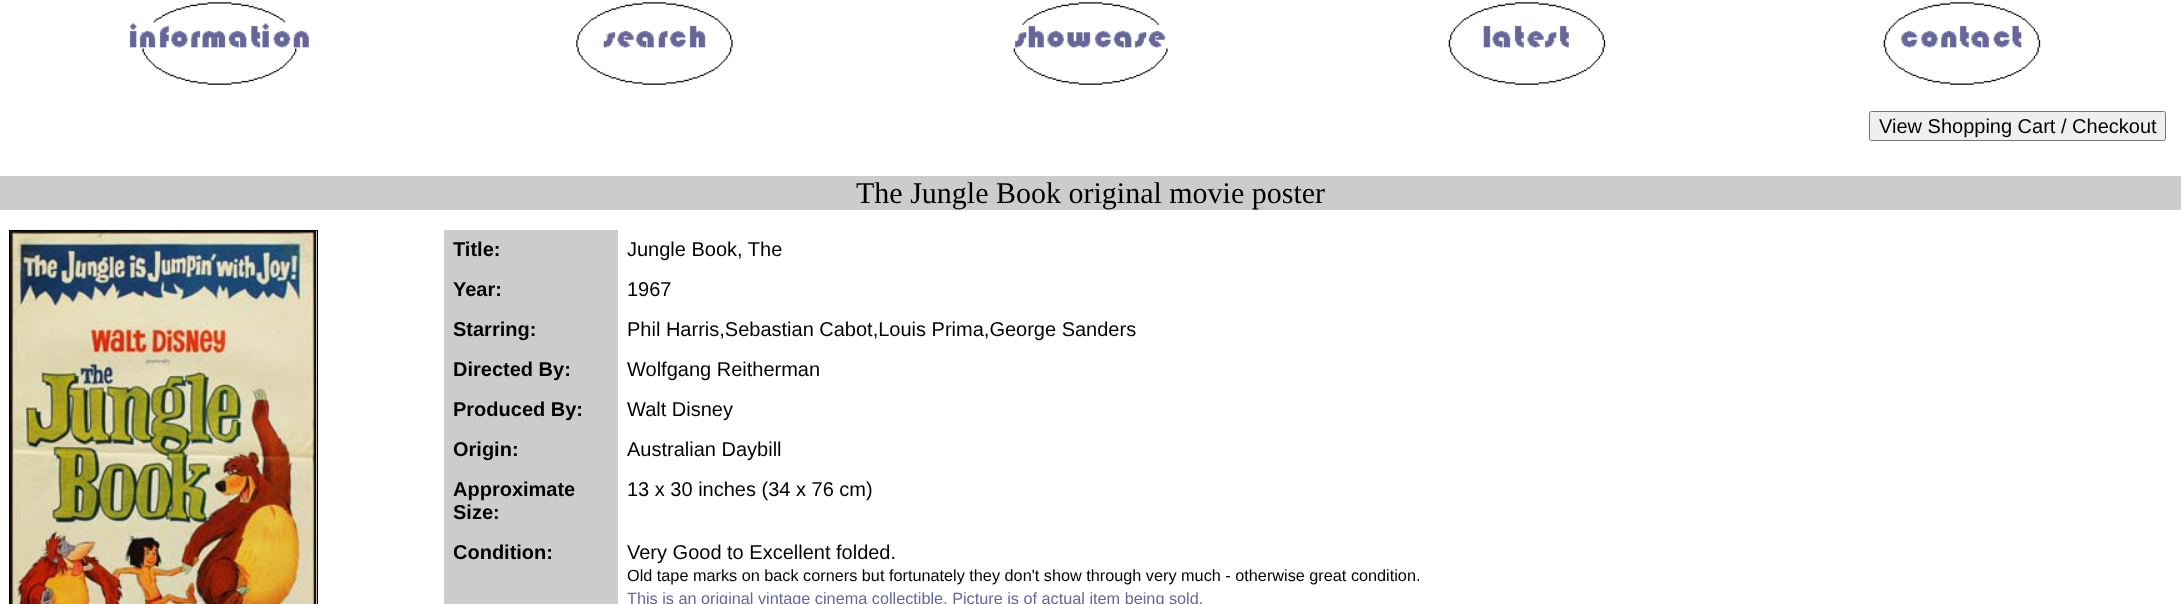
<!DOCTYPE html>
<meta charset="utf-8">
<style>body { margin: 0 } canvas { display: block }</style>
<canvas id="canvas" width="2181" height="604"></canvas>
<img id="img1" src="images/1.png" hidden>
<img id="img2" src="images/2.png" hidden>
<img id="img3" src="images/3.png" hidden>
<img id="img4" src="images/4.png" hidden>
<img id="img5" src="images/5.png" hidden>
<img id="img6" src="images/6.png" hidden>
<script>
window.onload = function () {
    const canvas = document.getElementById('canvas');
    const context = canvas.getContext('2d');
    context.miterLimit = 4;
    context.fontKerning = 'normal';

    context.fillStyle = 'rgb(255, 255, 255)';
    context.fillRect(0, 0, 2181, 604);
    context.drawImage(document.getElementById('img1'), 129, 2, 180, 83);
    context.drawImage(document.getElementById('img2'), 576, 2, 157, 83);
    context.drawImage(document.getElementById('img3'), 1013, 2, 155, 83);
    context.drawImage(document.getElementById('img4'), 1448, 2, 158, 83);
    context.drawImage(document.getElementById('img5'), 1883, 2, 158, 83);
    context.fillStyle = 'rgb(239, 239, 239)';
    context.beginPath();
    context.roundRect(1869.5, 111.5, 296, 29, 2);
    context.fill();
    context.strokeStyle = 'rgb(118, 118, 118)';
    context.stroke();
    context.fillStyle = 'rgb(204, 204, 204)';
    context.fillRect(0, 176, 2181, 34);
    context.strokeStyle = 'rgb(0, 0, 0)';
    context.strokeRect(9.5, 230.5, 308, 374);
    context.drawImage(document.getElementById('img6'), 10, 231, 307, 373);
    context.fillRect(444, 230, 174, 374);
    context.font = '20px Liberation Sans';
    context.fillStyle = 'rgb(0, 0, 0)';
    context.fillText('View Shopping Cart / Checkout', 1879, 133);
    context.font = '30px Liberation Serif';
    context.fillText('The Jungle Book original movie poster', 856, 203);
    context.font = 'bold 20px Liberation Sans';
    context.fillText('Title:', 453, 256);
    context.font = '20px Liberation Sans';
    context.fillText('Jungle Book, The', 627, 256);
    context.font = 'bold 20px Liberation Sans';
    context.fillText('Year:', 453, 296);
    context.font = '20px Liberation Sans';
    context.fillText('1967', 627, 296);
    context.font = 'bold 20px Liberation Sans';
    context.fillText('Starring:', 453, 336);
    context.font = '20px Liberation Sans';
    context.fillText('Phil Harris,Sebastian Cabot,Louis Prima,George Sanders', 627, 336);
    context.font = 'bold 20px Liberation Sans';
    context.fillText('Directed By:', 453, 376);
    context.font = '20px Liberation Sans';
    context.fillText('Wolfgang Reitherman', 627, 376);
    context.font = 'bold 20px Liberation Sans';
    context.fillText('Produced By:', 453, 416);
    context.font = '20px Liberation Sans';
    context.fillText('Walt Disney', 627, 416);
    context.font = 'bold 20px Liberation Sans';
    context.fillText('Origin:', 453, 456);
    context.font = '20px Liberation Sans';
    context.fillText('Australian Daybill', 627, 456);
    context.font = 'bold 20px Liberation Sans';
    context.fillText('Approximate', 453, 496);
    context.fillText('Size:', 453, 519);
    context.font = '20px Liberation Sans';
    context.fillText('13 x 30 inches (34 x 76 cm)', 627, 496);
    context.font = 'bold 20px Liberation Sans';
    context.fillText('Condition:', 453, 559);
    context.font = '20px Liberation Sans';
    context.fillText('Very Good to Excellent folded.', 627, 559);
    context.font = '16.25px Liberation Sans';
    context.fillText('Old tape marks on back corners but fortunately they don\'t show through very much - otherwise great condition.', 627, 581);
    context.fillStyle = 'rgb(102, 102, 153)';
    context.fillText('This is an original vintage cinema collectible. Picture is of actual item being sold.', 627, 604);
};
</script>
